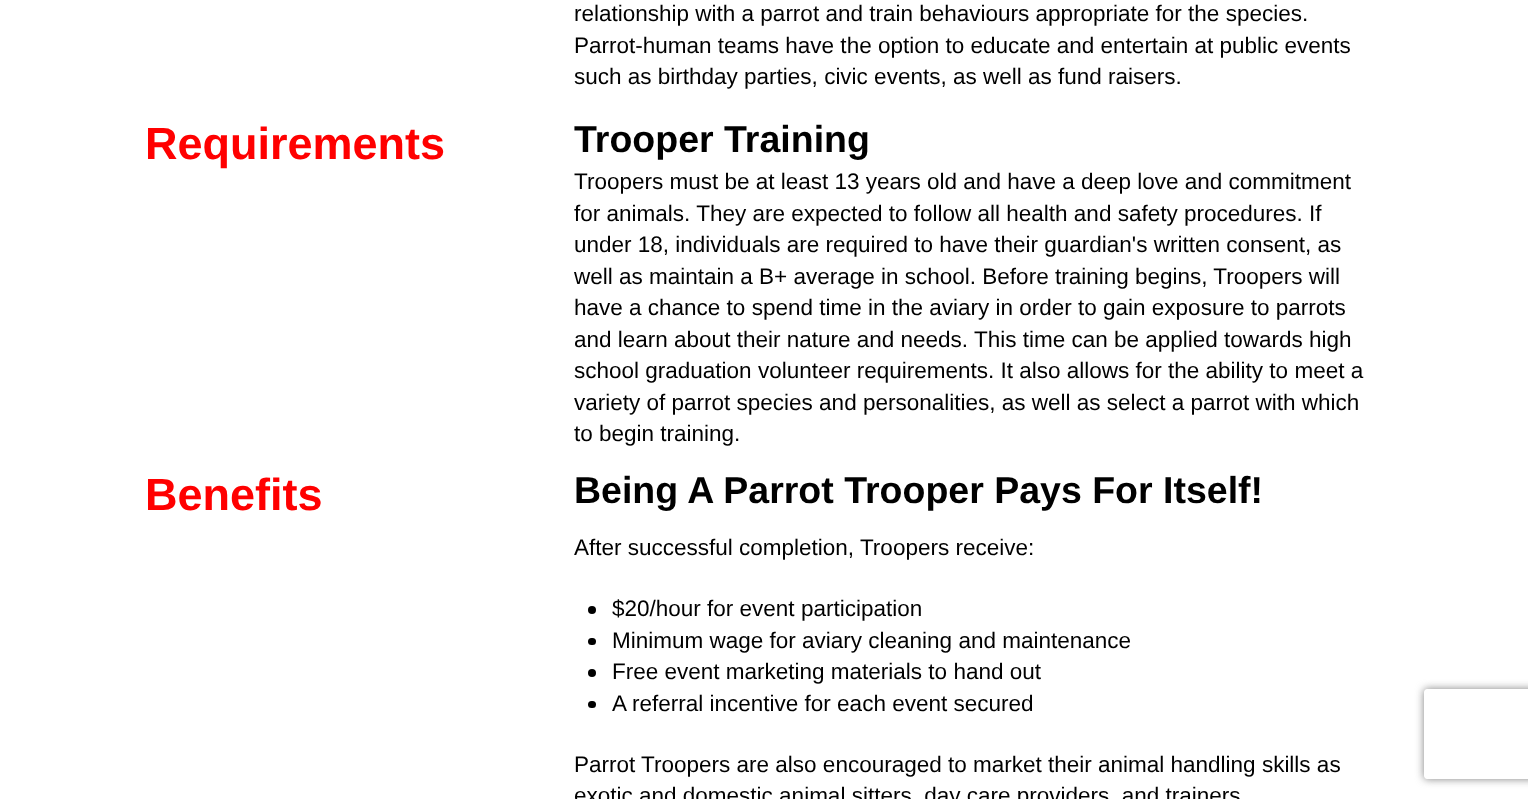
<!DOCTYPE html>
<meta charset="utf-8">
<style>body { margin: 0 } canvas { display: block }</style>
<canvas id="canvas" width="1528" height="799"></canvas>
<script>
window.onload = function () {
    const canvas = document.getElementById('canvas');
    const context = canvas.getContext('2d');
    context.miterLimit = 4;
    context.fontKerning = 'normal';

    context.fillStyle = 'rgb(255, 255, 255)';
    context.fillRect(0, 0, 1528, 799);
    context.fillStyle = 'rgb(0, 0, 0)';
    context.beginPath();
    context.arc(592, 610, 4, 0, 2 * Math.PI);
    context.fill();
    context.beginPath();
    context.roundRect(588, 638, 8, 7, 3.5);
    context.fill();
    context.beginPath();
    context.arc(592, 673, 4, 0, 2 * Math.PI);
    context.fill();
    context.beginPath();
    context.roundRect(588, 701, 8, 7, 3.5);
    context.fill();
    context.save();
    context.beginPath();
    context.moveTo(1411, 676);
    context.lineTo(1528, 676);
    context.lineTo(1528, 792);
    context.lineTo(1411, 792);
    context.closePath();
    context.moveTo(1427, 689);
    context.lineTo(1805, 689);
    context.bezierCurveTo(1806.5, 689, 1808, 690.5, 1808, 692);
    context.lineTo(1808, 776);
    context.bezierCurveTo(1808, 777.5, 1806.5, 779, 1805, 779);
    context.lineTo(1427, 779);
    context.bezierCurveTo(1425.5, 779, 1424, 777.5, 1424, 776);
    context.lineTo(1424, 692);
    context.bezierCurveTo(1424, 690.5, 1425.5, 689, 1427, 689);
    context.closePath();
    context.clip('evenodd');
    context.fillStyle = 'rgb(128, 128, 128)';
    context.filter = 'blur(4px)';
    context.beginPath();
    context.roundRect(1424, 689, 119, 90, 3);
    context.fill();
    context.filter = 'none';
    context.restore();
    context.font = '22.5px Liberation Sans';
    context.fillText('relationship with a parrot and train behaviours appropriate for the species.', 574, 21);
    context.fillText('Parrot-human teams have the option to educate and entertain at public events', 574, 53);
    context.fillText('such as birthday parties, civic events, as well as fund raisers.', 574, 84);
    context.font = 'bold 45px Liberation Sans';
    context.fillStyle = 'rgb(255, 0, 0)';
    context.fillText('Requirements', 145, 159);
    context.font = 'bold 37.5px Liberation Sans';
    context.fillStyle = 'rgb(0, 0, 0)';
    context.fillText('Trooper Training', 574, 152);
    context.font = '22.5px Liberation Sans';
    context.fillText('Troopers must be at least 13 years old and have a deep love and commitment', 574, 189);
    context.fillText('for animals. They are expected to follow all health and safety procedures. If', 574, 221);
    context.fillText('under 18, individuals are required to have their guardian\'s written consent, as', 574, 252);
    context.fillText('well as maintain a B+ average in school. Before training begins, Troopers will', 574, 284);
    context.fillText('have a chance to spend time in the aviary in order to gain exposure to parrots', 574, 315);
    context.fillText('and learn about their nature and needs. This time can be applied towards high', 574, 347);
    context.fillText('school graduation volunteer requirements. It also allows for the ability to meet a', 574, 378);
    context.fillText('variety of parrot species and personalities, as well as select a parrot with which', 574, 410);
    context.fillText('to begin training.', 574, 441);
    context.font = 'bold 45px Liberation Sans';
    context.fillStyle = 'rgb(255, 0, 0)';
    context.fillText('Benefits', 145, 510);
    context.font = 'bold 37.5px Liberation Sans';
    context.fillStyle = 'rgb(0, 0, 0)';
    context.fillText('Being A Parrot Trooper Pays For Itself!', 574, 503);
    context.font = '22.5px Liberation Sans';
    context.fillText('After successful completion, Troopers receive:', 574, 555);
    context.fillText('$20/hour for event participation', 612, 616);
    context.fillText('Minimum wage for aviary cleaning and maintenance', 612, 648);
    context.fillText('Free event marketing materials to hand out', 612, 679);
    context.fillText('A referral incentive for each event secured', 612, 711);
    context.fillText('Parrot Troopers are also encouraged to market their animal handling skills as', 574, 772);
    context.fillText('exotic and domestic animal sitters, day care providers, and trainers', 574, 803);
};
</script>
